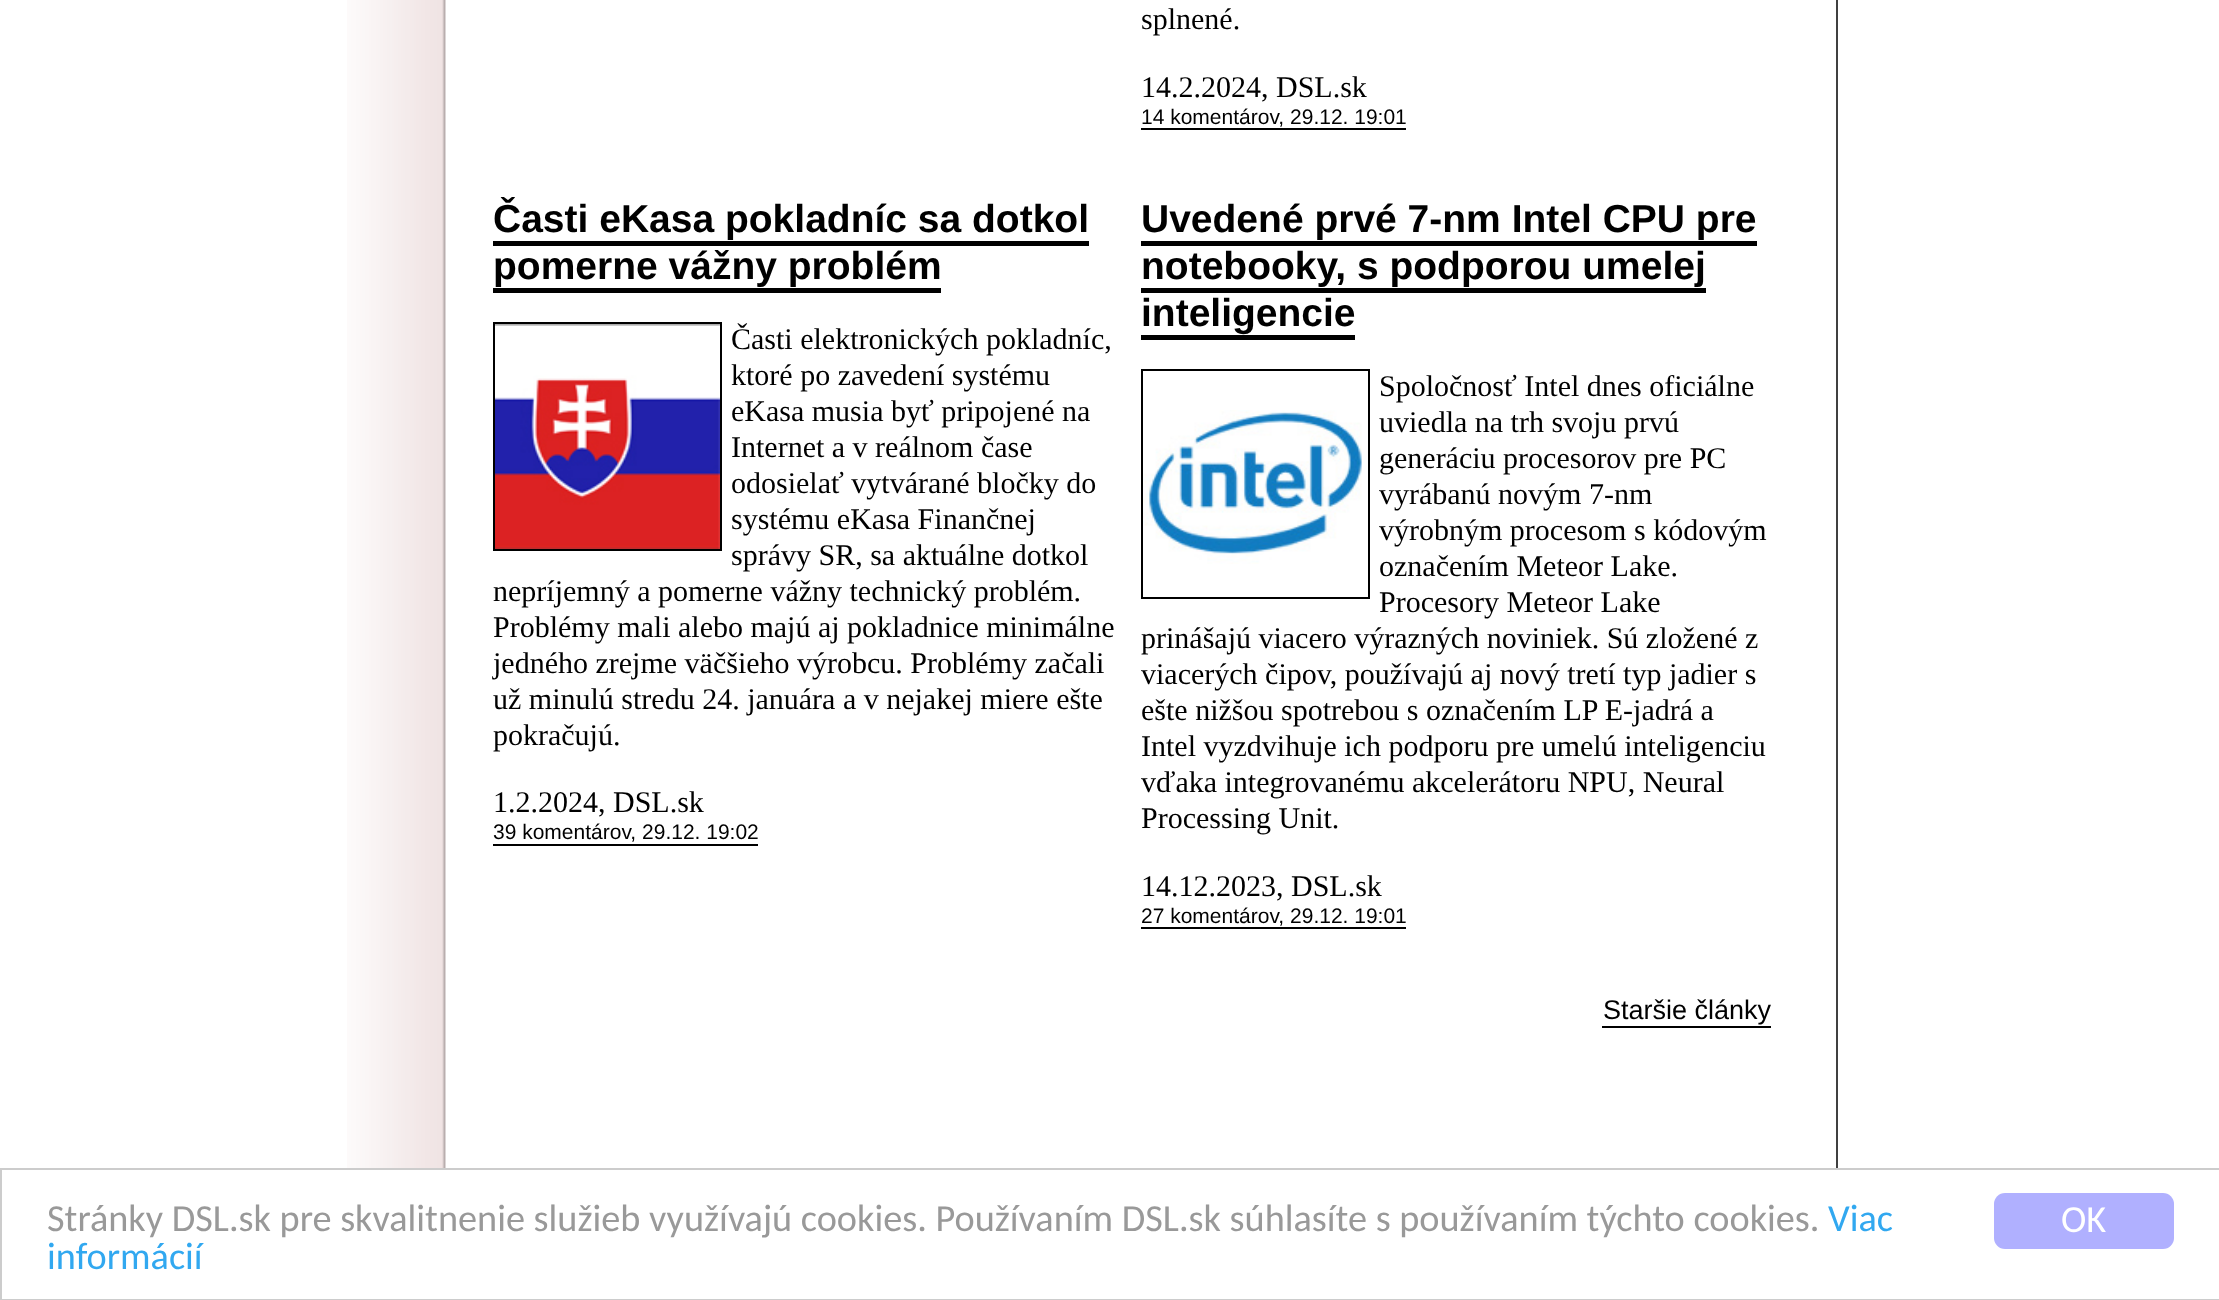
<!DOCTYPE html>
<meta charset="utf-8">
<style>body { margin: 0 } canvas { display: block }</style>
<canvas id="canvas" width="2219" height="1300"></canvas>
<img id="img1" src="images/1.png" hidden>
<img id="img2" src="images/2.png" hidden>
<img id="img3" src="images/3.png" hidden>
<script>
window.onload = function () {
    const canvas = document.getElementById('canvas');
    const context = canvas.getContext('2d');
    context.miterLimit = 4;
    context.fontKerning = 'normal';

    context.fillStyle = 'rgb(255, 255, 255)';
    context.fillRect(0, 0, 2219, 1300);
    context.fillStyle = 'rgb(64, 64, 64)';
    context.fillRect(1836, 0, 2, 1168);
    context.drawImage(document.getElementById('img1'), 347, 0, 99, 1168);
    context.fillStyle = 'rgb(0, 0, 0)';
    context.fillRect(1141, 128, 265, 2);
    context.fillRect(493, 241, 596, 5);
    context.fillRect(493, 288, 448, 5);
    context.strokeStyle = 'rgb(0, 0, 0)';
    context.lineWidth = 2;
    context.strokeRect(494, 323, 227, 227);
    context.drawImage(document.getElementById('img2'), 495, 324, 225, 225);
    context.fillRect(493, 844, 265, 2);
    context.fillRect(1141, 241, 616, 5);
    context.fillRect(1141, 288, 565, 5);
    context.fillRect(1141, 335, 214, 5);
    context.strokeRect(1142, 370, 227, 228);
    context.drawImage(document.getElementById('img3'), 1143, 410, 219, 154);
    context.fillRect(1141, 927, 265, 2);
    context.fillRect(1602, 1026, 169, 2);
    context.strokeStyle = 'rgb(204, 204, 204)';
    context.strokeRect(1, 1169, 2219, 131);
    context.fillStyle = 'rgb(176, 176, 255)';
    context.beginPath();
    context.roundRect(1994, 1193, 180, 56, 11);
    context.fill();
    context.font = '30px Liberation Serif';
    context.fillStyle = 'rgb(0, 0, 0)';
    context.fillText('splnené.', 1141, 29);
    context.fillText('14.2.2024, DSL.sk', 1141, 97);
    context.font = '21px Liberation Sans';
    context.fillText('14 komentárov, 29.12. 19:01', 1141, 124);
    context.font = 'bold 39px Liberation Sans';
    context.fillText('Časti eKasa pokladníc sa dotkol', 493, 232);
    context.fillText('pomerne vážny problém', 493, 279);
    context.font = '30px Liberation Serif';
    context.fillText('Časti elektronických pokladníc,', 731, 349);
    context.fillText('ktoré po zavedení systému', 731, 385);
    context.fillText('eKasa musia byť pripojené na', 731, 421);
    context.fillText('Internet a v reálnom čase', 731, 457);
    context.fillText('odosielať vytvárané bločky do', 731, 493);
    context.fillText('systému eKasa Finančnej', 731, 529);
    context.fillText('správy SR, sa aktuálne dotkol', 731, 565);
    context.fillText('nepríjemný a pomerne vážny technický problém.', 493, 601);
    context.fillText('Problémy mali alebo majú aj pokladnice minimálne', 493, 637);
    context.fillText('jedného zrejme väčšieho výrobcu. Problémy začali', 493, 673);
    context.fillText('už minulú stredu 24. januára a v nejakej miere ešte', 493, 709);
    context.fillText('pokračujú.', 493, 745);
    context.fillText('1.2.2024, DSL.sk', 493, 812);
    context.font = '21px Liberation Sans';
    context.fillText('39 komentárov, 29.12. 19:02', 493, 839);
    context.font = 'bold 39px Liberation Sans';
    context.fillText('Uvedené prvé 7-nm Intel CPU pre', 1141, 232);
    context.fillText('notebooky, s podporou umelej', 1141, 279);
    context.fillText('inteligencie', 1141, 326);
    context.font = '30px Liberation Serif';
    context.fillText('Spoločnosť Intel dnes oficiálne', 1379, 396);
    context.fillText('uviedla na trh svoju prvú', 1379, 432);
    context.fillText('generáciu procesorov pre PC', 1379, 468);
    context.fillText('vyrábanú novým 7-nm', 1379, 504);
    context.fillText('výrobným procesom s kódovým', 1379, 540);
    context.fillText('označením Meteor Lake.', 1379, 576);
    context.fillText('Procesory Meteor Lake', 1379, 612);
    context.fillText('prinášajú viacero výrazných noviniek. Sú zložené z', 1141, 648);
    context.fillText('viacerých čipov, používajú aj nový tretí typ jadier s', 1141, 684);
    context.fillText('ešte nižšou spotrebou s označením LP E-jadrá a', 1141, 720);
    context.fillText('Intel vyzdvihuje ich podporu pre umelú inteligenciu', 1141, 756);
    context.fillText('vďaka integrovanému akcelerátoru NPU, Neural', 1141, 792);
    context.fillText('Processing Unit.', 1141, 828);
    context.fillText('14.12.2023, DSL.sk', 1141, 896);
    context.font = '21px Liberation Sans';
    context.fillText('27 komentárov, 29.12. 19:01', 1141, 923);
    context.font = '27px Liberation Sans';
    context.fillText('Staršie články', 1603, 1019);
    context.font = '38.25px Carlito';
    context.fillStyle = 'rgb(153, 153, 153)';
    context.fillText('Stránky DSL.sk pre skvalitnenie služieb využívajú cookies. Používaním DSL.sk súhlasíte s používaním týchto cookies.', 47, 1231);
    context.fillStyle = 'rgb(49, 168, 240)';
    context.fillText('Viac', 1828, 1231);
    context.fillText('informácií', 47, 1269);
    context.fillStyle = 'rgb(255, 255, 255)';
    context.fillText('OK', 2061, 1232);
};
</script>
